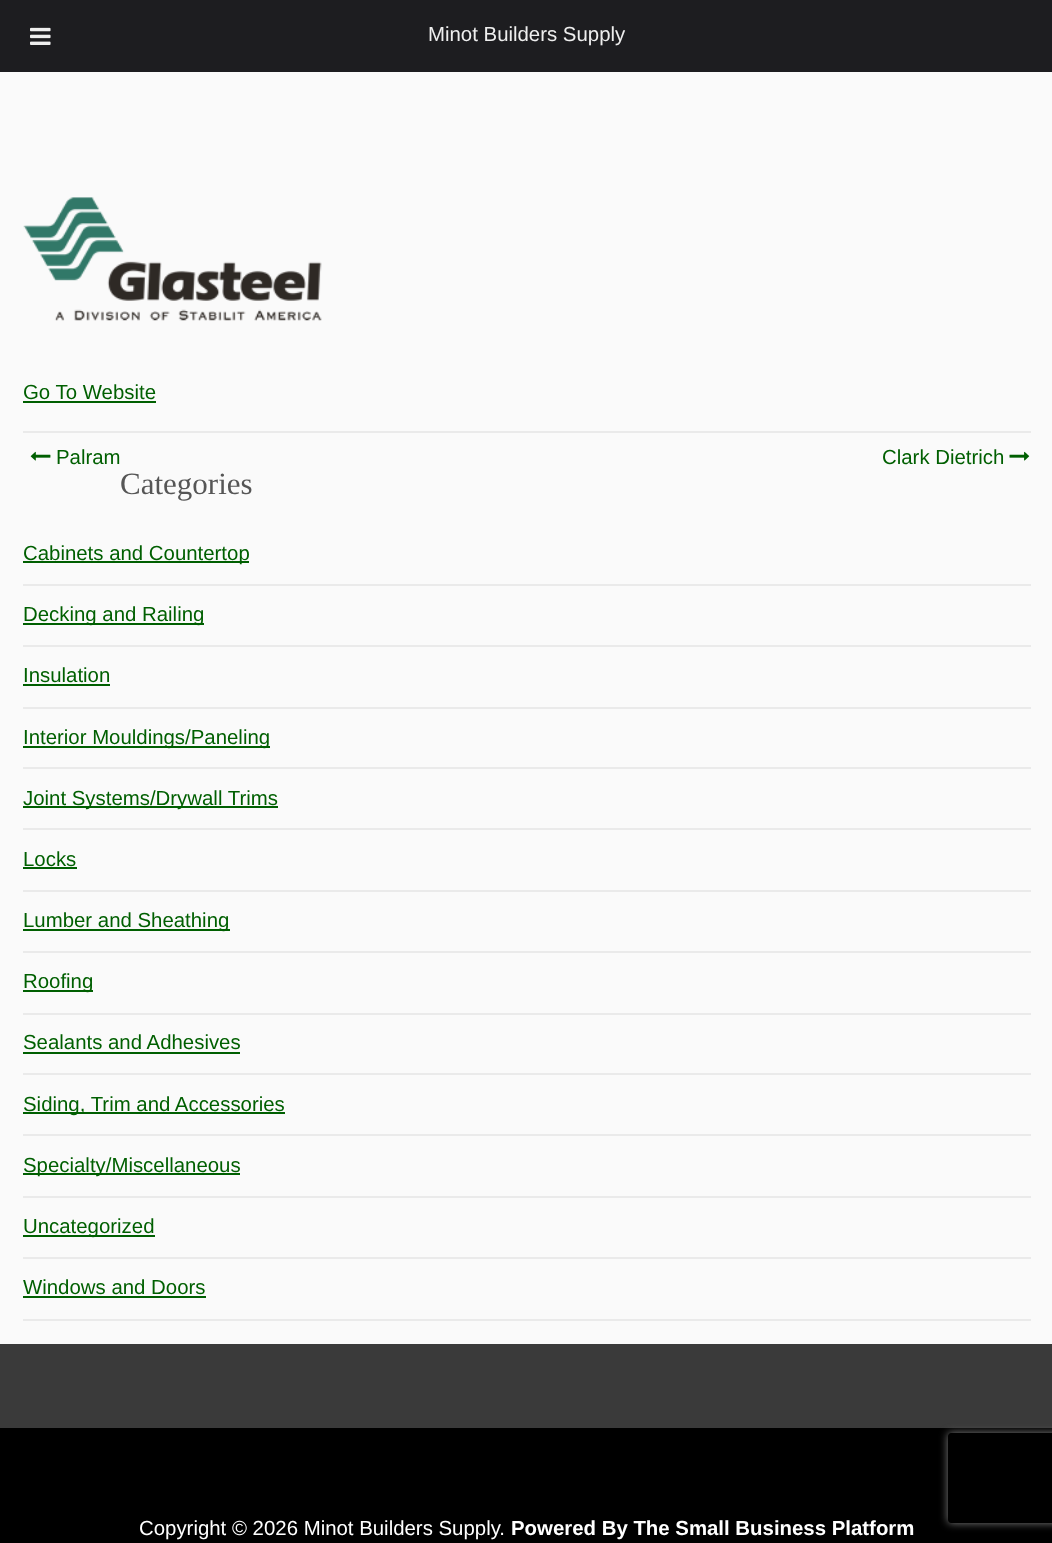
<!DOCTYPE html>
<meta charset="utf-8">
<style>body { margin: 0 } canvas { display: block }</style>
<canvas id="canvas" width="1052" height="1543"></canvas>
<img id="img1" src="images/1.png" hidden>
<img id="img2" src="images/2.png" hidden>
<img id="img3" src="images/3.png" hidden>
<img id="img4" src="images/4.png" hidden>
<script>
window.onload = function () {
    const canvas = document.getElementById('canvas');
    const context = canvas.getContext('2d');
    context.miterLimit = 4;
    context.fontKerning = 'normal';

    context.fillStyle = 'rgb(58, 58, 58)';
    context.fillRect(0, 0, 1052, 1543);
    context.fillStyle = 'rgb(29, 29, 32)';
    context.fillRect(0, 0, 1052, 72);
    context.drawImage(document.getElementById('img1'), 30, 27, 21, 18);
    context.fillStyle = 'rgb(250, 250, 250)';
    context.fillRect(0, 72, 1052, 1272);
    context.drawImage(document.getElementById('img2'), 23, 197, 299, 124);
    context.fillStyle = 'rgb(0, 95, 1)';
    context.fillRect(23, 401, 133, 2);
    context.fillStyle = 'rgb(234, 234, 234)';
    context.fillRect(23, 431, 1008, 2);
    context.drawImage(document.getElementById('img3'), 30, 451, 21, 10);
    context.drawImage(document.getElementById('img4'), 1009, 451, 21, 10);
    context.fillRect(23, 584, 1008, 2);
    context.fillStyle = 'rgb(0, 95, 1)';
    context.fillRect(23, 561, 226, 2);
    context.fillStyle = 'rgb(234, 234, 234)';
    context.fillRect(23, 645, 1008, 2);
    context.fillStyle = 'rgb(0, 95, 1)';
    context.fillRect(23, 623, 181, 2);
    context.fillStyle = 'rgb(234, 234, 234)';
    context.fillRect(23, 707, 1008, 2);
    context.fillStyle = 'rgb(0, 95, 1)';
    context.fillRect(23, 684, 87, 2);
    context.fillStyle = 'rgb(234, 234, 234)';
    context.fillRect(23, 767, 1008, 2);
    context.fillStyle = 'rgb(0, 95, 1)';
    context.fillRect(23, 746, 247, 2);
    context.fillStyle = 'rgb(234, 234, 234)';
    context.fillRect(23, 828, 1008, 2);
    context.fillStyle = 'rgb(0, 95, 1)';
    context.fillRect(23, 806, 255, 2);
    context.fillStyle = 'rgb(234, 234, 234)';
    context.fillRect(23, 890, 1008, 2);
    context.fillStyle = 'rgb(0, 95, 1)';
    context.fillRect(23, 867, 54, 2);
    context.fillStyle = 'rgb(234, 234, 234)';
    context.fillRect(23, 951, 1008, 2);
    context.fillStyle = 'rgb(0, 95, 1)';
    context.fillRect(23, 929, 207, 2);
    context.fillStyle = 'rgb(234, 234, 234)';
    context.fillRect(23, 1013, 1008, 2);
    context.fillStyle = 'rgb(0, 95, 1)';
    context.fillRect(23, 990, 70, 2);
    context.fillStyle = 'rgb(234, 234, 234)';
    context.fillRect(23, 1073, 1008, 2);
    context.fillStyle = 'rgb(0, 95, 1)';
    context.fillRect(23, 1052, 217, 2);
    context.fillStyle = 'rgb(234, 234, 234)';
    context.fillRect(23, 1134, 1008, 2);
    context.fillStyle = 'rgb(0, 95, 1)';
    context.fillRect(23, 1112, 262, 2);
    context.fillStyle = 'rgb(234, 234, 234)';
    context.fillRect(23, 1196, 1008, 2);
    context.fillStyle = 'rgb(0, 95, 1)';
    context.fillRect(23, 1173, 217, 2);
    context.fillStyle = 'rgb(234, 234, 234)';
    context.fillRect(23, 1257, 1008, 2);
    context.fillStyle = 'rgb(0, 95, 1)';
    context.fillRect(23, 1235, 132, 2);
    context.fillStyle = 'rgb(234, 234, 234)';
    context.fillRect(23, 1319, 1008, 2);
    context.fillStyle = 'rgb(0, 95, 1)';
    context.fillRect(23, 1296, 183, 2);
    context.fillStyle = 'rgb(0, 0, 0)';
    context.fillRect(0, 1428, 1052, 115);
    context.save();
    context.beginPath();
    context.moveTo(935, 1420);
    context.lineTo(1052, 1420);
    context.lineTo(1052, 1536);
    context.lineTo(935, 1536);
    context.closePath();
    context.moveTo(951, 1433);
    context.lineTo(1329, 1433);
    context.bezierCurveTo(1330.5, 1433, 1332, 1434.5, 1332, 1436);
    context.lineTo(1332, 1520);
    context.bezierCurveTo(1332, 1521.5, 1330.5, 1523, 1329, 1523);
    context.lineTo(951, 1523);
    context.bezierCurveTo(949.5, 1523, 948, 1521.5, 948, 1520);
    context.lineTo(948, 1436);
    context.bezierCurveTo(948, 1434.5, 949.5, 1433, 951, 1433);
    context.closePath();
    context.clip('evenodd');
    context.fillStyle = 'rgb(128, 128, 128)';
    context.filter = 'blur(4px)';
    context.beginPath();
    context.roundRect(948, 1433, 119, 90, 3);
    context.fill();
    context.filter = 'none';
    context.restore();
    context.font = '20.4px Liberation Sans';
    context.fillStyle = 'rgb(238, 238, 238)';
    context.fillText('Minot Builders Supply', 428, 41);
    context.fillStyle = 'rgb(0, 95, 1)';
    context.fillText('Go To Website', 23, 399);
    context.fillText('Palram', 56, 464);
    context.fillText('Clark Dietrich', 882, 464);
    context.font = '31px Liberation Serif';
    context.fillStyle = 'rgb(86, 86, 86)';
    context.fillText('Categories', 120, 494);
    context.font = '20.4px Liberation Sans';
    context.fillStyle = 'rgb(0, 95, 1)';
    context.fillText('Cabinets and Countertop', 23, 560);
    context.fillText('Decking and Railing', 23, 621);
    context.fillText('Insulation', 23, 682);
    context.fillText('Interior Mouldings/Paneling', 23, 744);
    context.fillText('Joint Systems/Drywall Trims', 23, 805);
    context.fillText('Locks', 23, 866);
    context.fillText('Lumber and Sheathing', 23, 927);
    context.fillText('Roofing', 23, 988);
    context.fillText('Sealants and Adhesives', 23, 1049);
    context.fillText('Siding, Trim and Accessories', 23, 1111);
    context.fillText('Specialty/Miscellaneous', 23, 1172);
    context.fillText('Uncategorized', 23, 1233);
    context.fillText('Windows and Doors', 23, 1294);
    context.fillStyle = 'rgb(255, 255, 255)';
    context.fillText('Copyright © 2026 Minot Builders Supply.', 139, 1535);
    context.font = 'bold 20.4px Liberation Sans';
    context.fillText('Powered By The Small Business Platform', 511, 1535);
};
</script>
